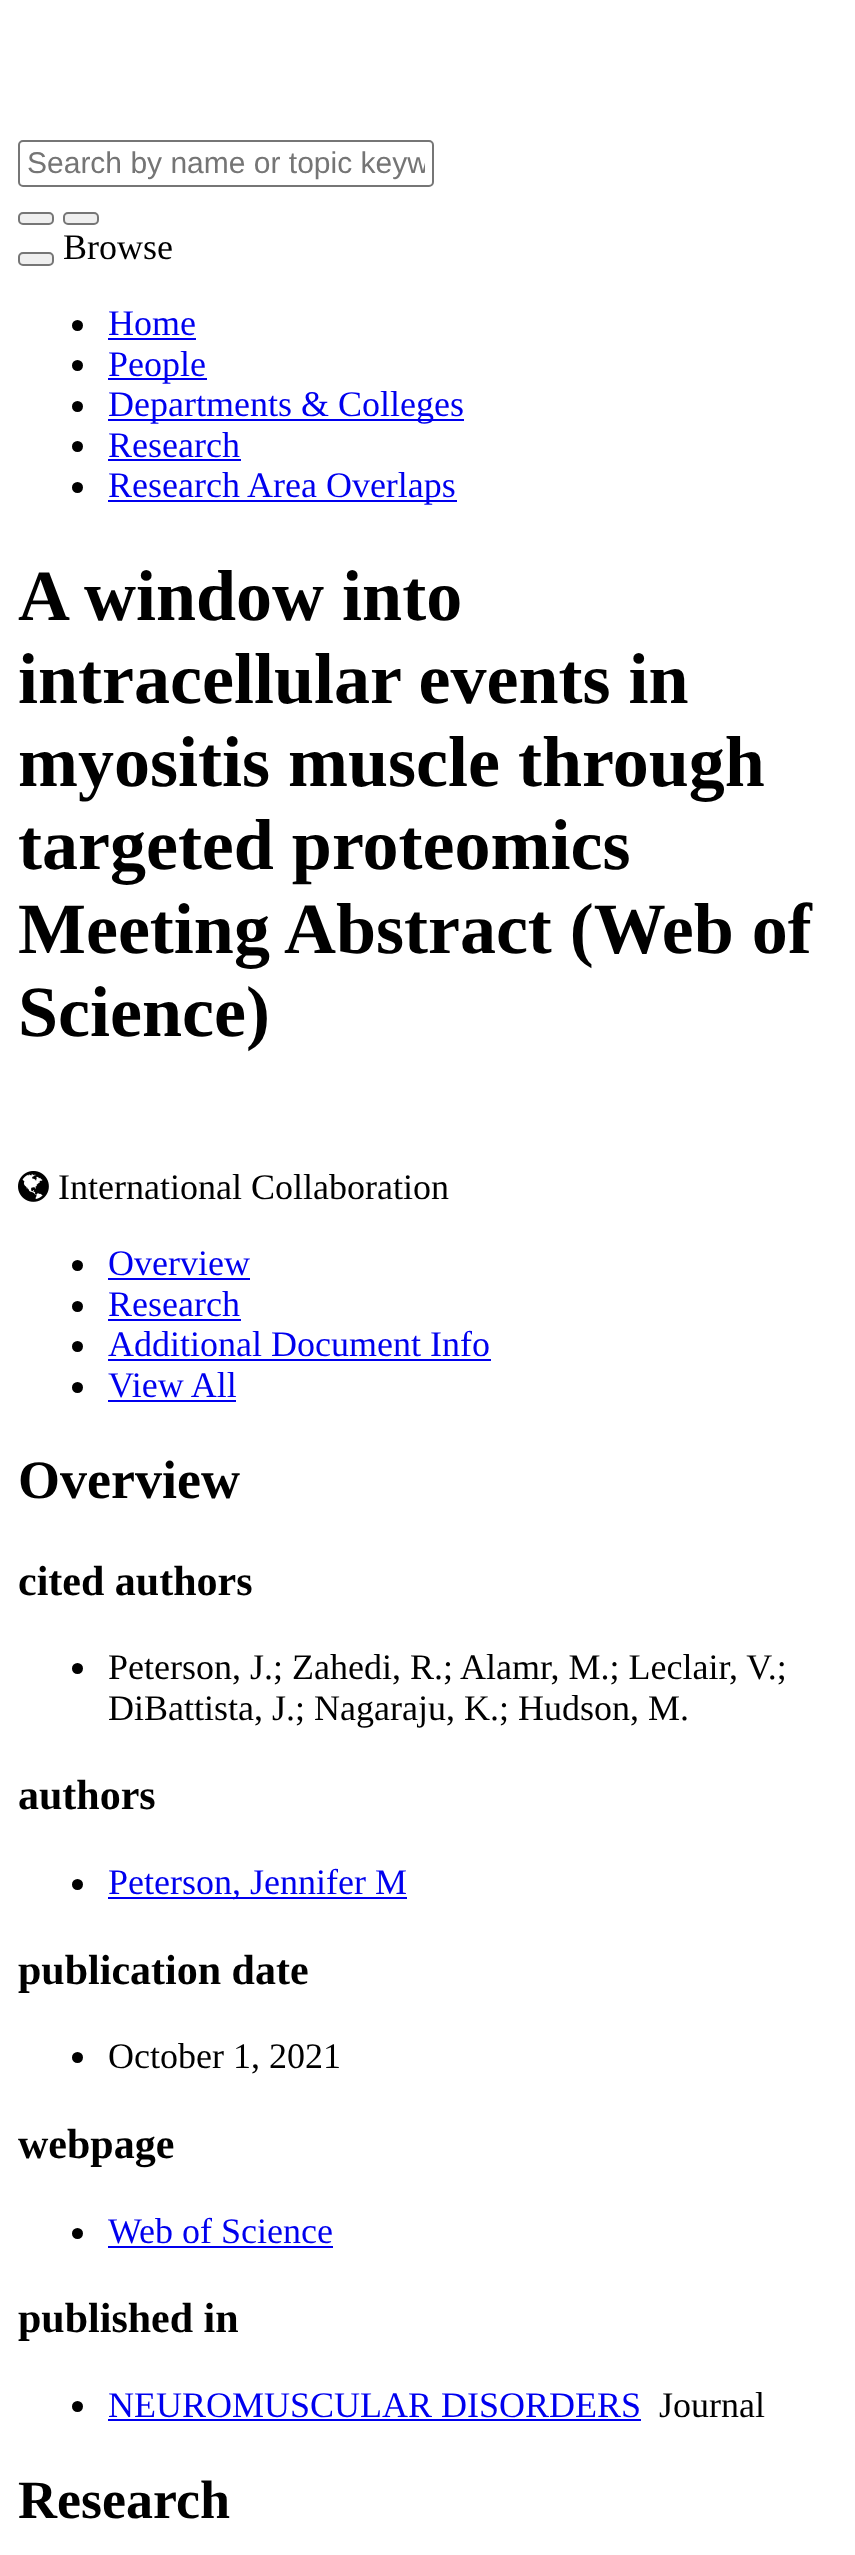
<!DOCTYPE html>
<meta charset="utf-8">
<style>body { margin: 0 } canvas { display: block }</style>
<canvas id="canvas" width="855" height="2555"></canvas>
<img id="img1" src="images/1.png" hidden>
<script>
window.onload = function () {
    const canvas = document.getElementById('canvas');
    const context = canvas.getContext('2d');
    context.miterLimit = 4;
    context.fontKerning = 'normal';

    context.fillStyle = 'rgb(255, 255, 255)';
    context.fillRect(0, 0, 855, 2555);
    context.beginPath();
    context.roundRect(19, 141, 414, 45, 4);
    context.strokeStyle = 'rgb(118, 118, 118)';
    context.lineWidth = 2;
    context.stroke();
    context.fillStyle = 'rgb(239, 239, 239)';
    context.beginPath();
    context.roundRect(19, 213, 34, 11, 4);
    context.fill();
    context.stroke();
    context.beginPath();
    context.roundRect(64, 213, 34, 11, 4);
    context.fill();
    context.stroke();
    context.beginPath();
    context.roundRect(19, 253, 34, 12, 4);
    context.fill();
    context.stroke();
    context.fillStyle = 'rgb(0, 0, 0)';
    context.beginPath();
    context.arc(77.5, 325.5, 5.5, 0, 2 * Math.PI);
    context.fill();
    context.fillStyle = 'rgb(0, 0, 238)';
    context.fillRect(108, 338, 88, 2);
    context.fillStyle = 'rgb(0, 0, 0)';
    context.beginPath();
    context.arc(77.5, 365.5, 5.5, 0, 2 * Math.PI);
    context.fill();
    context.fillStyle = 'rgb(0, 0, 238)';
    context.fillRect(108, 378, 99, 2);
    context.fillStyle = 'rgb(0, 0, 0)';
    context.beginPath();
    context.arc(77.5, 406.5, 5.5, 0, 2 * Math.PI);
    context.fill();
    context.fillStyle = 'rgb(0, 0, 238)';
    context.fillRect(108, 419, 356, 2);
    context.fillStyle = 'rgb(0, 0, 0)';
    context.beginPath();
    context.arc(77.5, 446.5, 5.5, 0, 2 * Math.PI);
    context.fill();
    context.fillStyle = 'rgb(0, 0, 238)';
    context.fillRect(108, 459, 133, 2);
    context.fillStyle = 'rgb(0, 0, 0)';
    context.beginPath();
    context.arc(77.5, 487.5, 5.5, 0, 2 * Math.PI);
    context.fill();
    context.fillStyle = 'rgb(0, 0, 238)';
    context.fillRect(108, 500, 349, 2);
    context.drawImage(document.getElementById('img1'), 18, 1171, 31, 31);
    context.fillStyle = 'rgb(0, 0, 0)';
    context.beginPath();
    context.arc(77.5, 1265.5, 5.5, 0, 2 * Math.PI);
    context.fill();
    context.fillStyle = 'rgb(0, 0, 238)';
    context.fillRect(108, 1278, 142, 2);
    context.fillStyle = 'rgb(0, 0, 0)';
    context.beginPath();
    context.arc(77.5, 1306.5, 5.5, 0, 2 * Math.PI);
    context.fill();
    context.fillStyle = 'rgb(0, 0, 238)';
    context.fillRect(108, 1319, 133, 2);
    context.fillStyle = 'rgb(0, 0, 0)';
    context.beginPath();
    context.arc(77.5, 1346.5, 5.5, 0, 2 * Math.PI);
    context.fill();
    context.fillStyle = 'rgb(0, 0, 238)';
    context.fillRect(108, 1359, 383, 2);
    context.fillStyle = 'rgb(0, 0, 0)';
    context.beginPath();
    context.arc(77.5, 1387.5, 5.5, 0, 2 * Math.PI);
    context.fill();
    context.fillStyle = 'rgb(0, 0, 238)';
    context.fillRect(108, 1400, 128, 2);
    context.fillStyle = 'rgb(0, 0, 0)';
    context.beginPath();
    context.arc(77.5, 1668.5, 5.5, 0, 2 * Math.PI);
    context.fill();
    context.beginPath();
    context.arc(77.5, 1884.5, 5.5, 0, 2 * Math.PI);
    context.fill();
    context.fillStyle = 'rgb(0, 0, 238)';
    context.fillRect(108, 1897, 299, 2);
    context.fillStyle = 'rgb(0, 0, 0)';
    context.beginPath();
    context.arc(77.5, 2057.5, 5.5, 0, 2 * Math.PI);
    context.fill();
    context.beginPath();
    context.arc(77.5, 2233.5, 5.5, 0, 2 * Math.PI);
    context.fill();
    context.fillStyle = 'rgb(0, 0, 238)';
    context.fillRect(108, 2246, 225, 2);
    context.fillStyle = 'rgb(0, 0, 0)';
    context.beginPath();
    context.arc(77.5, 2406.5, 5.5, 0, 2 * Math.PI);
    context.fill();
    context.fillStyle = 'rgb(0, 0, 238)';
    context.fillRect(108, 2419, 533, 2);
    context.save();
    context.beginPath();
    context.rect(27, 146, 398, 34);
    context.clip();
    context.font = '30px Liberation Sans';
    context.fillStyle = 'rgb(117, 117, 117)';
    context.fillText('Search by name or topic keyw', 27, 173);
    context.restore();
    context.font = '36px Liberation Serif';
    context.fillStyle = 'rgb(0, 0, 0)';
    context.fillText('Browse', 63, 259);
    context.fillStyle = 'rgb(0, 0, 238)';
    context.fillText('Home', 108, 335);
    context.fillText('People', 108, 376);
    context.fillText('Departments & Colleges', 108, 416);
    context.fillText('Research', 108, 457);
    context.fillText('Research Area Overlaps', 108, 497);
    context.font = 'bold 72px Liberation Serif';
    context.fillStyle = 'rgb(0, 0, 0)';
    context.fillText('A window into', 18, 620);
    context.fillText('intracellular events in', 18, 703);
    context.fillText('myositis muscle through', 18, 786);
    context.fillText('targeted proteomics', 18, 869);
    context.fillText('Meeting Abstract (Web of', 18, 953);
    context.fillText('Science)', 18, 1036);
    context.font = '36px Liberation Serif';
    context.fillText('International Collaboration', 58, 1199);
    context.fillStyle = 'rgb(0, 0, 238)';
    context.fillText('Overview', 108, 1275);
    context.fillText('Research', 108, 1316);
    context.fillText('Additional Document Info', 108, 1356);
    context.fillText('View All', 108, 1397);
    context.font = 'bold 54px Liberation Serif';
    context.fillStyle = 'rgb(0, 0, 0)';
    context.fillText('Overview', 18, 1498);
    context.font = 'bold 42px Liberation Serif';
    context.fillText('cited authors', 18, 1595);
    context.font = '36px Liberation Serif';
    context.fillText('Peterson, J.; Zahedi, R.; Alamr, M.; Leclair, V.;', 108, 1679);
    context.fillText('DiBattista, J.; Nagaraju, K.; Hudson, M.', 108, 1720);
    context.font = 'bold 42px Liberation Serif';
    context.fillText('authors', 18, 1809);
    context.font = '36px Liberation Serif';
    context.fillStyle = 'rgb(0, 0, 238)';
    context.fillText('Peterson, Jennifer M', 108, 1894);
    context.font = 'bold 42px Liberation Serif';
    context.fillStyle = 'rgb(0, 0, 0)';
    context.fillText('publication date', 18, 1984);
    context.font = '36px Liberation Serif';
    context.fillText('October 1, 2021', 108, 2068);
    context.font = 'bold 42px Liberation Serif';
    context.fillText('webpage', 18, 2158);
    context.font = '36px Liberation Serif';
    context.fillStyle = 'rgb(0, 0, 238)';
    context.fillText('Web of Science', 108, 2243);
    context.font = 'bold 42px Liberation Serif';
    context.fillStyle = 'rgb(0, 0, 0)';
    context.fillText('published in', 18, 2332);
    context.font = '36px Liberation Serif';
    context.fillStyle = 'rgb(0, 0, 238)';
    context.fillText('NEUROMUSCULAR DISORDERS', 108, 2417);
    context.fillStyle = 'rgb(0, 0, 0)';
    context.fillText('Journal', 659, 2417);
    context.font = 'bold 54px Liberation Serif';
    context.fillText('Research', 18, 2518);
};
</script>
